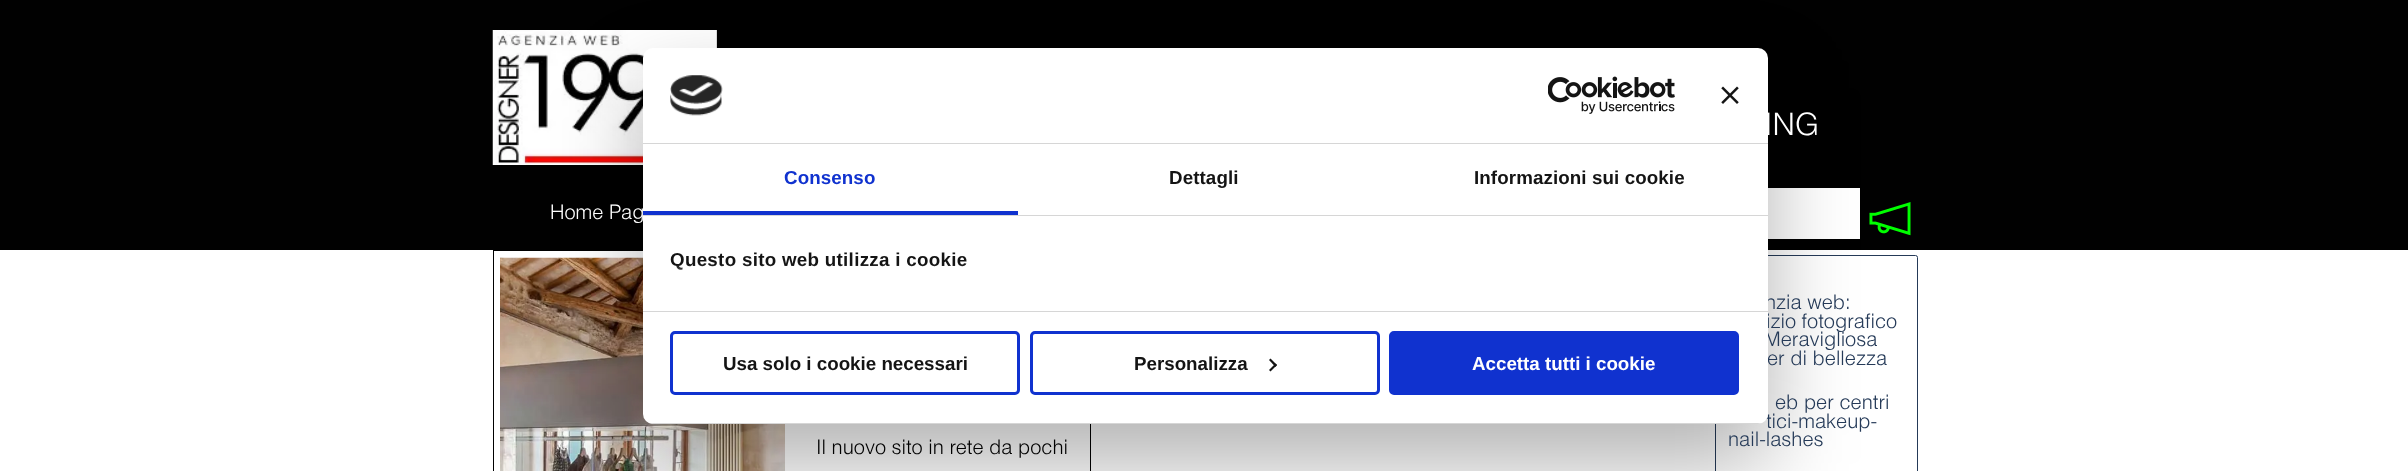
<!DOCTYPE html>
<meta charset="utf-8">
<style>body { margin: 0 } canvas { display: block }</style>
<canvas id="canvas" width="2408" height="471"></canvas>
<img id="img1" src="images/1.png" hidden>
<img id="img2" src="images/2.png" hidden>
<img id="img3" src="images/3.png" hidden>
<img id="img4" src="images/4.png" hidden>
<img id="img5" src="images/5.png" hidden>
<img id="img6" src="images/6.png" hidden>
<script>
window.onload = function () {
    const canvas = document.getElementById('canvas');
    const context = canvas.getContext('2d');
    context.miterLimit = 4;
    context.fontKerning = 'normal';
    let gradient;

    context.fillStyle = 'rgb(255, 255, 255)';
    context.fillRect(0, 0, 2408, 471);
    context.fillStyle = 'rgb(1, 1, 1)';
    context.fillRect(0, 0, 2408, 250);
    context.drawImage(document.getElementById('img1'), 492, 30, 225, 135);
    context.fillStyle = 'rgb(255, 255, 255)';
    context.fillRect(1768, 188, 92, 51);
    context.drawImage(document.getElementById('img2'), 1869, 202, 42, 34);
    context.strokeStyle = 'rgb(0, 0, 0)';
    context.strokeRect(493.5, 250.5, 597, 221);
    context.drawImage(document.getElementById('img3'), 500, 257, 285, 214);
    context.beginPath();
    context.roundRect(1715.5, 255.5, 202, 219, 2);
    context.strokeStyle = 'rgb(37, 58, 88)';
    context.stroke();
    context.fillStyle = 'rgba(0, 0, 0, 0.3)';
    context.filter = 'blur(42.5px)';
    context.beginPath();
    context.roundRect(643, 88, 1125, 376, 10);
    context.fill();
    context.filter = 'none';
    context.font = '300 31px Helvetica';
    context.fillStyle = 'rgb(255, 255, 255)';
    context.fillText('ING', 1764, 135);
    context.font = '300 20px Helvetica';
    context.fillText('Home Pag', 550, 219);
    context.fillStyle = 'rgb(0, 0, 0)';
    context.fillText('Il nuovo sito in rete da pochi', 816, 454);
    context.fillStyle = 'rgb(37, 58, 88)';
    context.fillText('nzia web:', 1765, 309);
    context.fillText('izio fotografico', 1766, 328);
    context.fillText('Meravigliosa', 1764, 346);
    context.fillText('er di bellezza', 1767, 365);
    context.fillText('eb per centri', 1775, 409);
    context.fillText('tici-makeup-', 1766, 428);
    context.fillText('nail-lashes', 1728, 446);
    context.fillStyle = 'rgb(255, 255, 255)';
    context.beginPath();
    context.roundRect(643, 48, 1125, 376, 10);
    context.fill();
    context.fillStyle = 'rgb(214, 214, 214)';
    context.fillRect(643, 143, 1125, 1);
    context.drawImage(document.getElementById('img4'), 670, 75, 53, 41);
    context.drawImage(document.getElementById('img5'), 1548, 76, 127, 38);
    context.drawImage(document.getElementById('img6'), 1721, 86, 18, 18);
    context.fillRect(643, 215, 1125, 1);
    context.fillStyle = 'rgb(16, 50, 207)';
    context.fillRect(643, 211, 375, 4);
    context.letterSpacing = '0.1px';
    context.font = 'bold 18.75px Liberation Sans';
    context.fillText('Consenso', 784, 184);
    context.fillStyle = 'rgb(20, 20, 20)';
    context.fillText('Dettagli', 1169, 184);
    context.fillText('Informazioni sui cookie', 1474, 184);
    context.fillStyle = 'rgb(214, 214, 214)';
    context.fillRect(643, 311, 1125, 1);
    context.letterSpacing = '0.3px';
    context.fillStyle = 'rgb(20, 20, 20)';
    context.fillText('Questo sito web utilizza i cookie', 670, 266);
    gradient = context.createLinearGradient(1192, 312, 1192, 264);
    gradient.addColorStop(0, 'rgb(255, 255, 255)');
    gradient.addColorStop(0.5, 'rgba(255, 255, 255, 0.8)');
    gradient.addColorStop(1, 'rgba(255, 255, 255, 0)');
    context.fillStyle = gradient;
    context.fillRect(674, 265, 292, 5);
    context.save();
    context.beginPath();
    context.roundRect(643, 48, 1125, 376, 10);
    context.clip();
    context.fillStyle = 'rgb(214, 214, 214)';
    context.fillRect(643, 423, 1125, 1);
    context.restore();
    context.beginPath();
    context.roundRect(671.5, 332.5, 347, 61, 3.5);
    context.strokeStyle = 'rgb(16, 50, 207)';
    context.lineWidth = 3;
    context.stroke();
    context.letterSpacing = '0px';
    context.fillStyle = 'rgb(20, 20, 20)';
    context.fillText('Usa solo i cookie necessari', 723, 370);
    context.beginPath();
    context.roundRect(1031.5, 332.5, 347, 61, 3.5);
    context.stroke();
    context.fillText('Personalizza', 1134, 370);
    context.beginPath();
    context.moveTo(1270.5, 358.5);
    context.lineTo(1277, 365);
    context.lineTo(1275.5, 367);
    context.lineTo(1269, 360);
    context.closePath();
    context.fill();
    context.beginPath();
    context.moveTo(1275.5, 363.5);
    context.lineTo(1277, 365);
    context.lineTo(1270.5, 371.5);
    context.lineTo(1269, 370);
    context.closePath();
    context.fill();
    context.fillStyle = 'rgb(16, 50, 207)';
    context.beginPath();
    context.roundRect(1390.5, 332.5, 347, 61, 3.5);
    context.fill();
    context.stroke();
    context.fillStyle = 'rgb(255, 255, 255)';
    context.fillText('Accetta tutti i cookie', 1472, 370);
};
</script>
